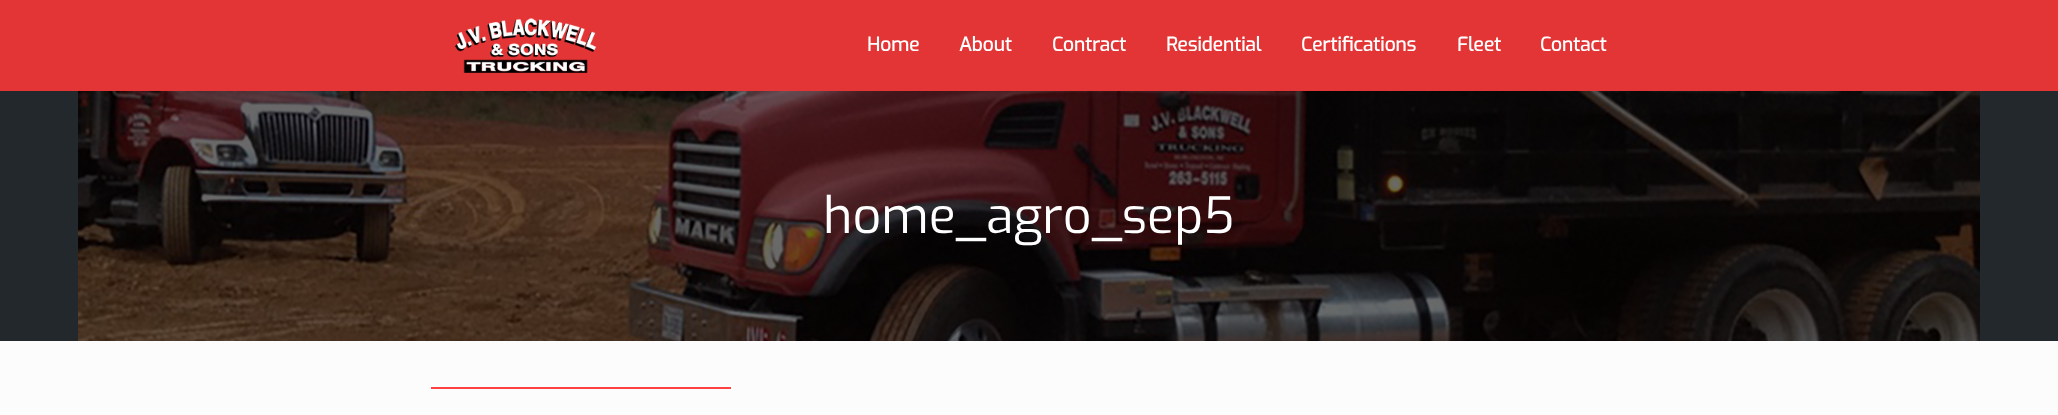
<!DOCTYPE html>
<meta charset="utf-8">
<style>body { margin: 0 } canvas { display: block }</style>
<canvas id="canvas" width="2058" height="415"></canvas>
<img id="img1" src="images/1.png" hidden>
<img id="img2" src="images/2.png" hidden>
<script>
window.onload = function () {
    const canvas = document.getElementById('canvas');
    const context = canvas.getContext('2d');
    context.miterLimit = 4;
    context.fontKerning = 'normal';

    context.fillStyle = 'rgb(252, 252, 252)';
    context.fillRect(0, 0, 2058, 415);
    context.fillStyle = 'rgb(35, 40, 45)';
    context.fillRect(0, 91, 2058, 250);
    context.drawImage(document.getElementById('img1'), 78, 91, 1902, 250);
    context.fillStyle = 'rgb(227, 53, 53)';
    context.fillRect(0, 0, 2058, 91);
    context.drawImage(document.getElementById('img2'), 454, 18, 143, 55);
    context.fillStyle = 'rgb(255, 65, 65)';
    context.fillRect(431, 387, 300, 2);
    context.font = 'bold 19px Exo';
    context.fillStyle = 'rgb(255, 255, 255)';
    context.fillText('Home', 867, 51);
    context.fillText('About', 959, 51);
    context.fillText('Contract', 1052, 51);
    context.fillText('Residential', 1166, 51);
    context.fillText('Certifications', 1301, 51);
    context.fillText('Fleet', 1457, 51);
    context.fillText('Contact', 1540, 51);
    context.font = '50px Exo';
    context.fillText('home_agro_sep5', 823, 233);
};
</script>
